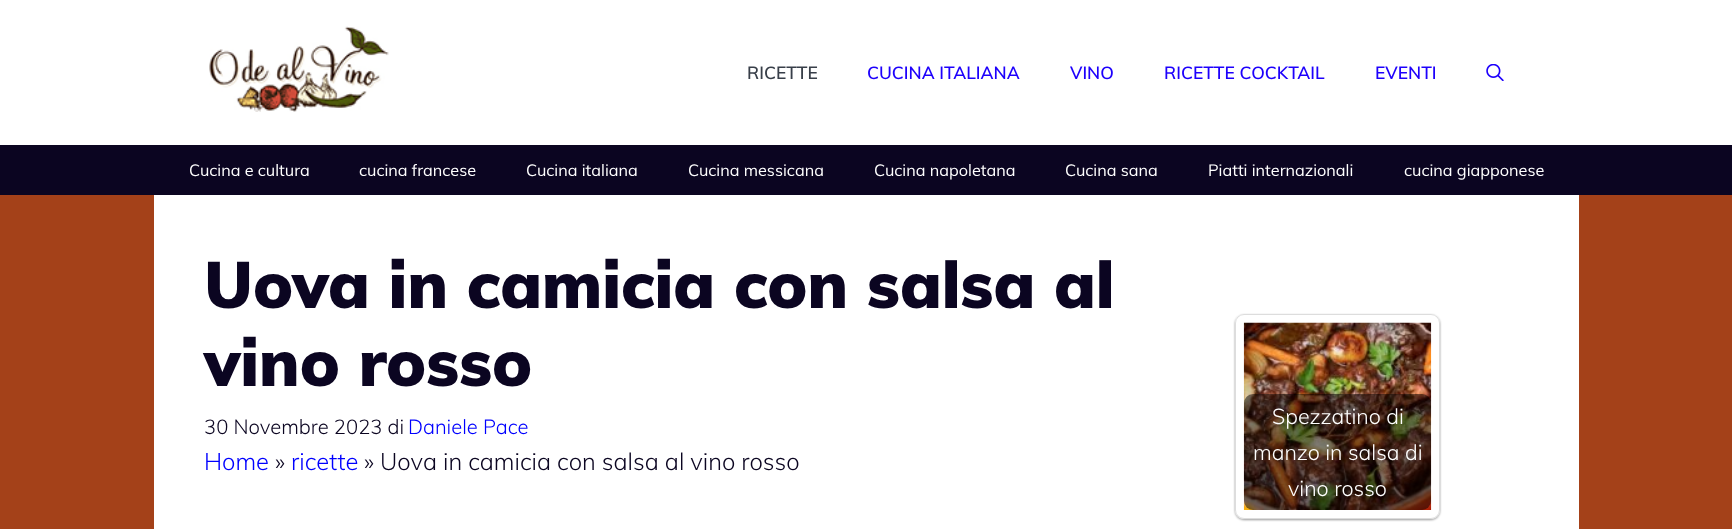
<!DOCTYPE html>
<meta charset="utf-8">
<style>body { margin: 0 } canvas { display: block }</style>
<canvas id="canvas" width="1732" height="529"></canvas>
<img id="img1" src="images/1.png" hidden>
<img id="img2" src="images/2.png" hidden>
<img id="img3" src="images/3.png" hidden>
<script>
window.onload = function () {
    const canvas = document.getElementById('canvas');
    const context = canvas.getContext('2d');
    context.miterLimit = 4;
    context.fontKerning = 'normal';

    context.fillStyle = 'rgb(164, 65, 25)';
    context.fillRect(0, 0, 1732, 529);
    context.fillStyle = 'rgb(255, 255, 255)';
    context.fillRect(0, 0, 1732, 145);
    context.drawImage(document.getElementById('img1'), 209, 26, 180, 86);
    context.drawImage(document.getElementById('img2'), 1486, 64, 18, 17);
    context.fillStyle = 'rgb(11, 5, 33)';
    context.fillRect(0, 145, 1732, 50);
    context.fillStyle = 'rgb(255, 255, 255)';
    context.fillRect(154, 195, 1425, 334);
    context.save();
    context.beginPath();
    context.moveTo(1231, 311);
    context.lineTo(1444, 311);
    context.lineTo(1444, 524);
    context.lineTo(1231, 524);
    context.closePath();
    context.moveTo(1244, 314);
    context.lineTo(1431, 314);
    context.bezierCurveTo(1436, 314, 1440, 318, 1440, 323);
    context.lineTo(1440, 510);
    context.bezierCurveTo(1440, 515, 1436, 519, 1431, 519);
    context.lineTo(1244, 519);
    context.bezierCurveTo(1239, 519, 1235, 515, 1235, 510);
    context.lineTo(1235, 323);
    context.bezierCurveTo(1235, 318, 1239, 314, 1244, 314);
    context.closePath();
    context.clip('evenodd');
    context.fillStyle = 'rgba(0, 0, 0, 0.4)';
    context.filter = 'blur(1px)';
    context.beginPath();
    context.roundRect(1235, 315, 205, 205, 9);
    context.fill();
    context.filter = 'none';
    context.restore();
    context.beginPath();
    context.roundRect(1235.5, 314.5, 204, 204, 8.5);
    context.strokeStyle = 'rgb(221, 221, 221)';
    context.stroke();
    context.drawImage(document.getElementById('img3'), 1243, 322, 189, 188);
    context.fillStyle = 'rgba(0, 0, 0, 0.5)';
    context.beginPath();
    context.roundRect(1244, 394, 187, 116, 9);
    context.fill();
    context.font = '600 17.5px Muli';
    context.fillStyle = 'rgb(56, 63, 73)';
    context.fillText('RICETTE', 747, 79);
    context.fillStyle = 'rgb(29, 0, 252)';
    context.fillText('CUCINA ITALIANA', 867, 79);
    context.fillText('VINO', 1070, 79);
    context.fillText('RICETTE COCKTAIL', 1164, 79);
    context.fillText('EVENTI', 1375, 79);
    context.font = '16.25px Muli';
    context.fillStyle = 'rgb(255, 255, 255)';
    context.fillText('Cucina e cultura', 189, 176);
    context.fillText('cucina francese', 359, 176);
    context.fillText('Cucina italiana', 526, 176);
    context.fillText('Cucina messicana', 688, 176);
    context.fillText('Cucina napoletana', 874, 176);
    context.fillText('Cucina sana', 1065, 176);
    context.fillText('Piatti internazionali', 1208, 176);
    context.fillText('cucina giapponese', 1404, 176);
    context.font = '900 65px Muli';
    context.fillStyle = 'rgb(11, 5, 33)';
    context.fillText('Uova in camicia con salsa al', 204, 308);
    context.fillText('vino rosso', 204, 386);
    context.font = '300 20.25px Muli';
    context.fillText('30 Novembre 2023 di', 204, 434);
    context.fillStyle = 'rgb(0, 0, 255)';
    context.fillText('Daniele Pace', 408, 434);
    context.font = '300 23.75px Muli';
    context.fillText('Home', 204, 470);
    context.fillStyle = 'rgb(11, 5, 33)';
    context.fillText('»', 275, 470);
    context.fillStyle = 'rgb(0, 0, 255)';
    context.fillText('ricette', 291, 470);
    context.fillStyle = 'rgb(11, 5, 33)';
    context.fillText('» Uova in camicia con salsa al vino rosso', 364, 470);
    context.font = '300 21.5px Muli';
    context.fillStyle = 'rgb(255, 255, 255)';
    context.fillText('Spezzatino di', 1272, 424);
    context.fillText('manzo in salsa di', 1253, 460);
    context.fillText('vino rosso', 1288, 496);
};
</script>
